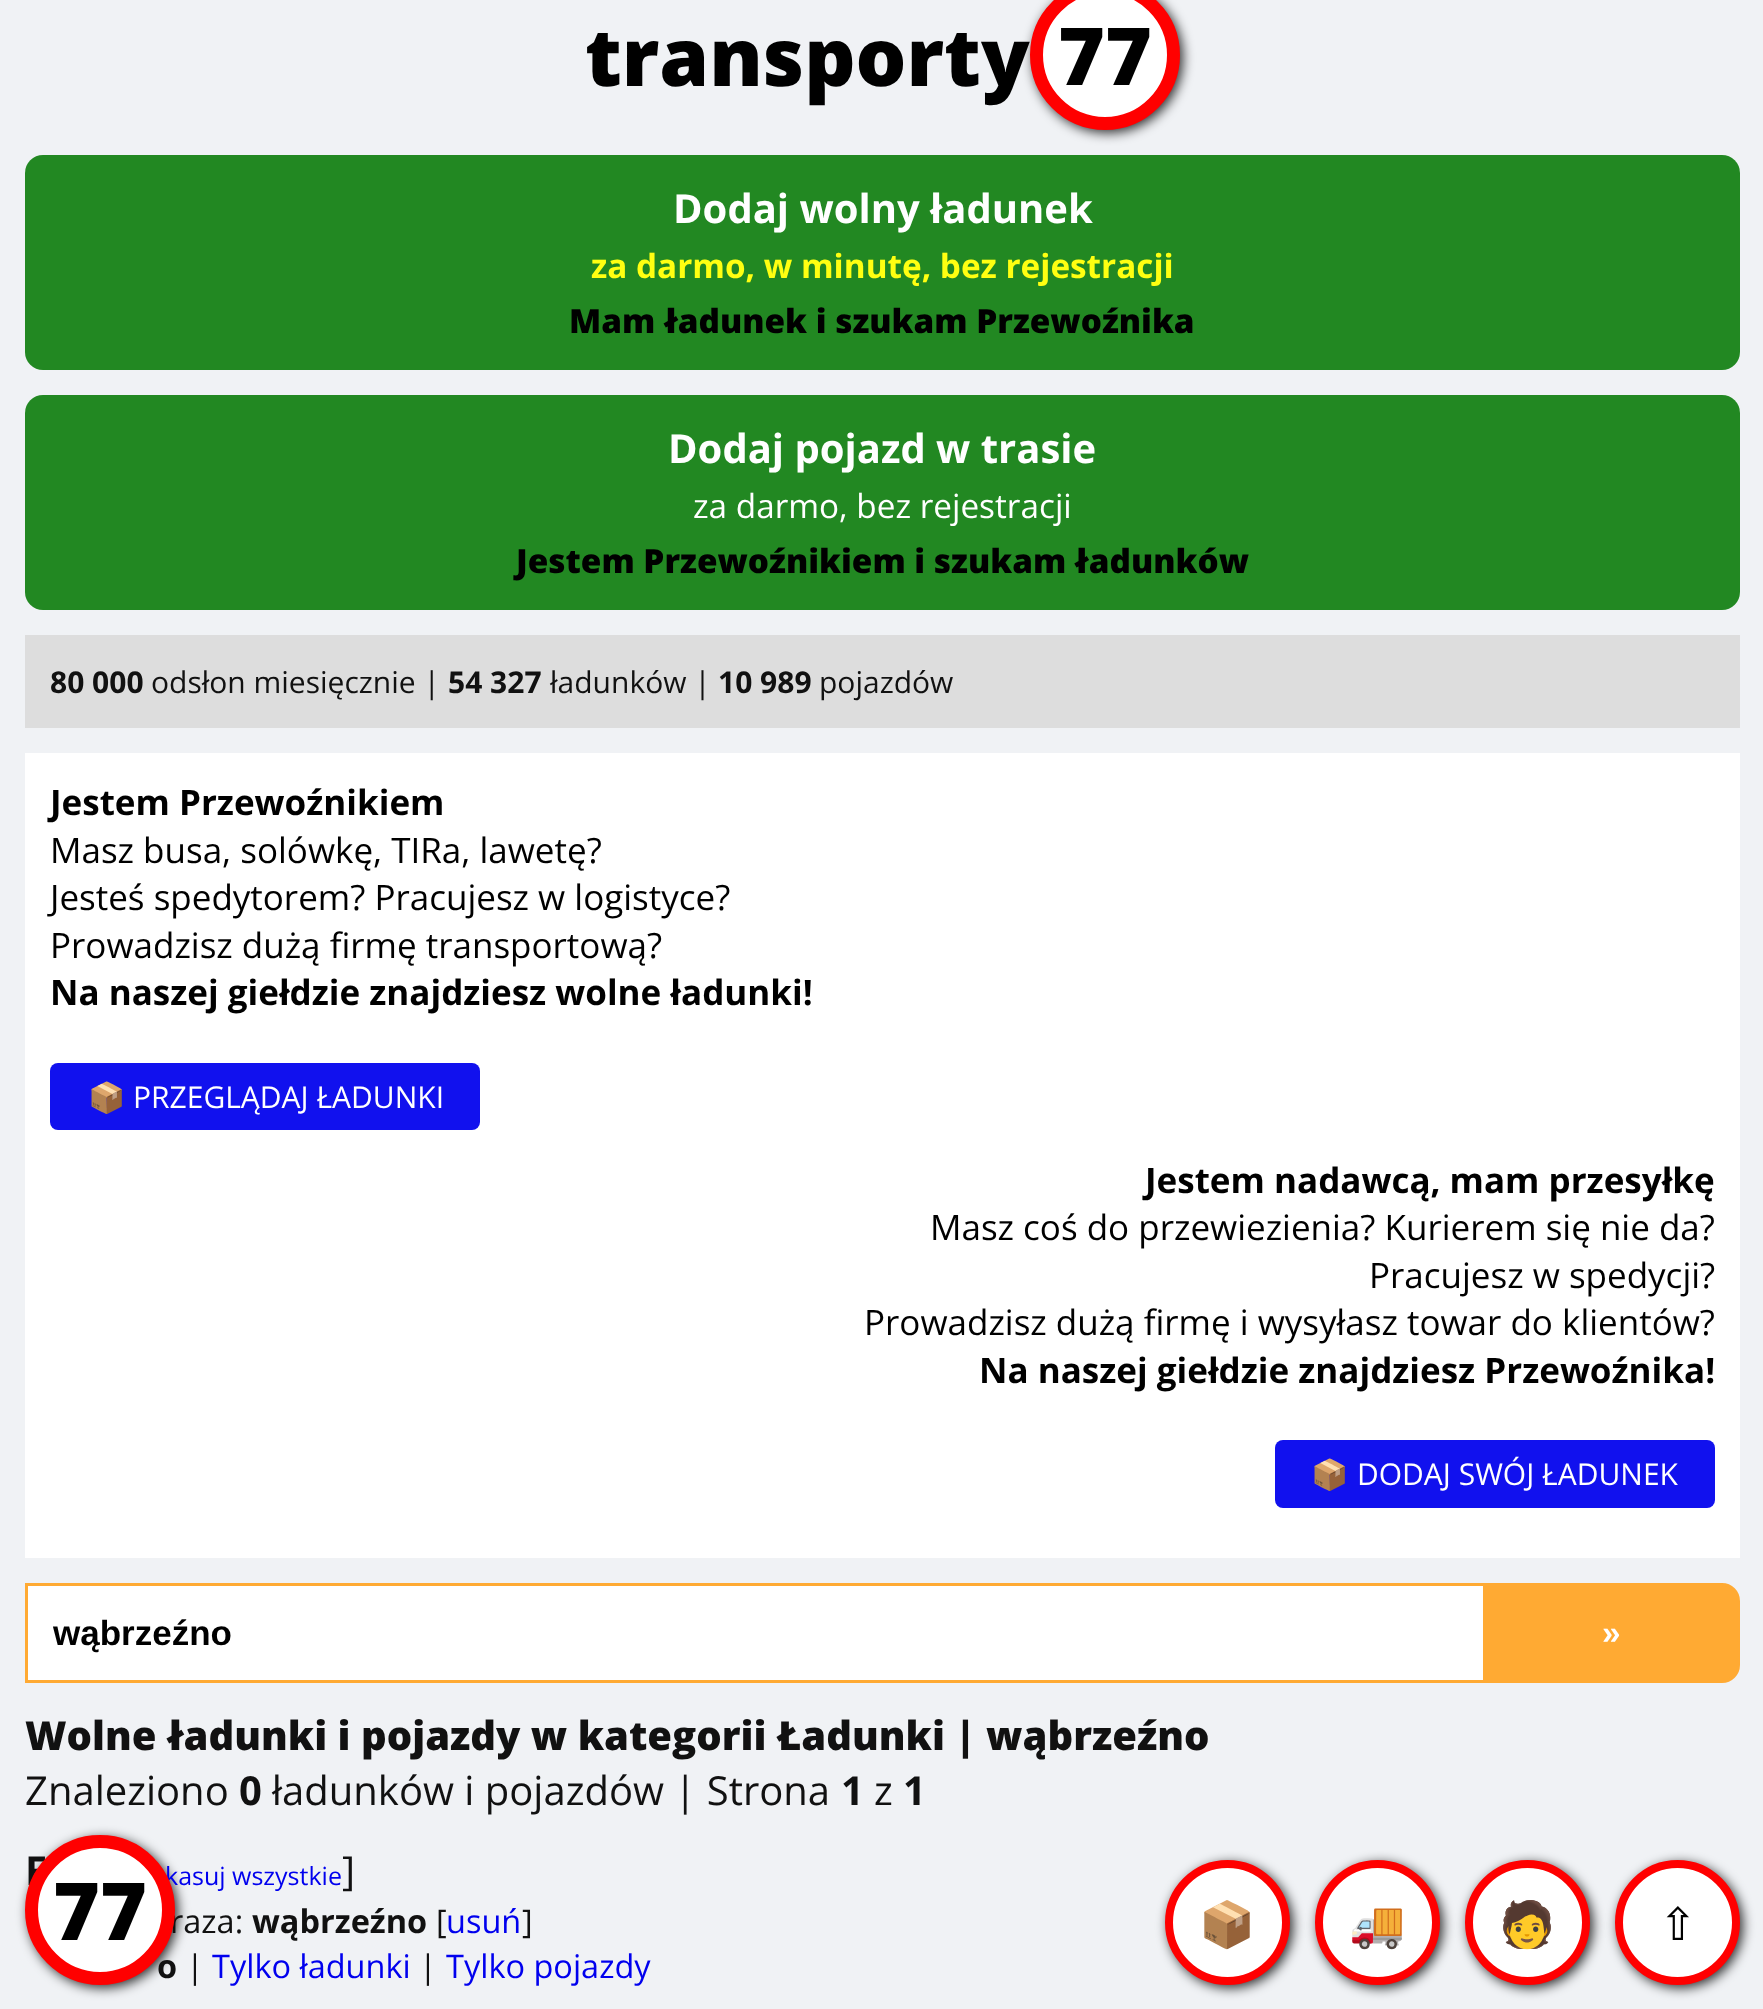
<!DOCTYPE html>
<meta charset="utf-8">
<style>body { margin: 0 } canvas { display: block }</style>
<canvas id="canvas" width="1763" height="2009"></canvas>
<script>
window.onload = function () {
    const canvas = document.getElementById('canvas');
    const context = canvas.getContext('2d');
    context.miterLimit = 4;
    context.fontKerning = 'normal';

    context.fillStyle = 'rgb(240, 242, 245)';
    context.fillRect(0, 0, 1763, 2009);
    context.fillStyle = 'rgba(0, 0, 0, 0.8)';
    context.filter = 'blur(6px)';
    context.beginPath();
    context.roundRect(1033, -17, 150, 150, 75);
    context.fill();
    context.filter = 'none';
    context.fillStyle = 'rgb(255, 255, 255)';
    context.beginPath();
    context.arc(1105, 55, 68.5, 0, 2 * Math.PI);
    context.fill();
    context.strokeStyle = 'rgb(255, 0, 0)';
    context.lineWidth = 13;
    context.stroke();
    context.fillStyle = 'rgb(34, 136, 34)';
    context.beginPath();
    context.roundRect(25, 155, 1715, 215, 18);
    context.fill();
    context.beginPath();
    context.roundRect(25, 395, 1715, 215, 18);
    context.fill();
    context.fillStyle = 'rgb(221, 221, 221)';
    context.fillRect(25, 635, 1715, 93);
    context.fillStyle = 'rgb(255, 255, 255)';
    context.fillRect(25, 753, 1715, 805);
    context.fillStyle = 'rgb(17, 17, 238)';
    context.beginPath();
    context.roundRect(50, 1063, 430, 67, 8);
    context.fill();
    context.beginPath();
    context.roundRect(1275, 1440, 440, 68, 8);
    context.fill();
    context.fillStyle = 'rgb(255, 255, 255)';
    context.fillRect(28, 1586, 1455, 94);
    context.fillStyle = 'rgb(255, 170, 51)';
    context.fillRect(25, 1583, 1458, 3);
    context.fillRect(25, 1680, 1458, 3);
    context.fillRect(25, 1583, 3, 100);
    context.beginPath();
    context.roundRect(1484.5, 1584.5, 254, 97, [0, 16.5, 16.5, 0]);
    context.fill();
    context.strokeStyle = 'rgb(255, 170, 51)';
    context.lineWidth = 3;
    context.stroke();
    context.fillStyle = 'rgba(0, 0, 0, 0.8)';
    context.filter = 'blur(6px)';
    context.beginPath();
    context.roundRect(28, 1838, 150, 150, 75);
    context.fill();
    context.filter = 'none';
    context.filter = 'blur(6px)';
    context.beginPath();
    context.roundRect(1168, 1863, 125, 125, 62.5);
    context.fill();
    context.filter = 'none';
    context.fillStyle = 'rgb(255, 255, 255)';
    context.beginPath();
    context.arc(1227.5, 1922.5, 58.5, 0, 2 * Math.PI);
    context.fill();
    context.strokeStyle = 'rgb(255, 0, 0)';
    context.lineWidth = 8;
    context.stroke();
    context.fillStyle = 'rgba(0, 0, 0, 0.8)';
    context.filter = 'blur(6px)';
    context.beginPath();
    context.roundRect(1318, 1863, 125, 125, 62.5);
    context.fill();
    context.filter = 'none';
    context.fillStyle = 'rgb(255, 255, 255)';
    context.beginPath();
    context.arc(1377.5, 1922.5, 58.5, 0, 2 * Math.PI);
    context.fill();
    context.stroke();
    context.fillStyle = 'rgba(0, 0, 0, 0.8)';
    context.filter = 'blur(6px)';
    context.beginPath();
    context.roundRect(1468, 1863, 125, 125, 62.5);
    context.fill();
    context.filter = 'none';
    context.fillStyle = 'rgb(255, 255, 255)';
    context.beginPath();
    context.arc(1527.5, 1922.5, 58.5, 0, 2 * Math.PI);
    context.fill();
    context.stroke();
    context.fillStyle = 'rgba(0, 0, 0, 0.8)';
    context.filter = 'blur(6px)';
    context.beginPath();
    context.roundRect(1618, 1863, 125, 125, 62.5);
    context.fill();
    context.filter = 'none';
    context.fillStyle = 'rgb(255, 255, 255)';
    context.beginPath();
    context.arc(1677.5, 1922.5, 58.5, 0, 2 * Math.PI);
    context.fill();
    context.stroke();
    context.font = '800 80px Open Sans';
    context.fillStyle = 'rgb(0, 0, 0)';
    context.fillText('transporty', 585, 86);
    context.fillText('77', 1058, 85);
    context.font = 'bold 40px Open Sans';
    context.fillStyle = 'rgb(255, 255, 255)';
    context.fillText('Dodaj wolny ładunek', 673, 223);
    context.font = 'bold 33.3px Open Sans';
    context.fillStyle = 'rgb(255, 255, 17)';
    context.fillText('za darmo, w minutę, bez rejestracji', 591, 278);
    context.font = '800 33.3px Open Sans';
    context.fillStyle = 'rgb(0, 0, 0)';
    context.fillText('Mam ładunek i szukam Przewoźnika', 569, 333);
    context.font = 'bold 40px Open Sans';
    context.fillStyle = 'rgb(255, 255, 255)';
    context.fillText('Dodaj pojazd w trasie', 668, 463);
    context.font = '33.3px Open Sans';
    context.fillText('za darmo, bez rejestracji', 693, 518);
    context.font = '800 33.3px Open Sans';
    context.fillStyle = 'rgb(0, 0, 0)';
    context.fillText('Jestem Przewoźnikiem i szukam ładunków', 516, 573);
    context.font = 'bold 30px Open Sans';
    context.fillStyle = 'rgb(17, 17, 17)';
    context.fillText('80 000', 50, 693);
    context.font = '30px Open Sans';
    context.fillText('odsłon miesięcznie |', 151, 693);
    context.font = 'bold 30px Open Sans';
    context.fillText('54 327', 448, 693);
    context.font = '30px Open Sans';
    context.fillText('ładunków |', 550, 693);
    context.font = 'bold 30px Open Sans';
    context.fillText('10 989', 718, 693);
    context.font = '30px Open Sans';
    context.fillText('pojazdów', 819, 693);
    context.font = 'bold 35px Open Sans';
    context.fillStyle = 'rgb(0, 0, 0)';
    context.fillText('Jestem Przewoźnikiem', 50, 815);
    context.font = '35px Open Sans';
    context.fillText('Masz busa, solówkę, TIRa, lawetę?', 50, 863);
    context.fillText('Jesteś spedytorem? Pracujesz w logistyce?', 50, 910);
    context.fillText('Prowadzisz dużą firmę transportową?', 50, 958);
    context.font = 'bold 35px Open Sans';
    context.fillText('Na naszej giełdzie znajdziesz wolne ładunki!', 50, 1005);
    context.font = '30px Noto Color Emoji';
    context.fillStyle = 'rgb(255, 255, 255)';
    context.fillText('📦', 88, 1108);
    context.font = '30px Open Sans';
    context.fillText('PRZEGLĄDAJ ŁADUNKI', 133, 1108);
    context.font = 'bold 35px Open Sans';
    context.fillStyle = 'rgb(0, 0, 0)';
    context.fillText('Jestem nadawcą, mam przesyłkę', 1145, 1193);
    context.font = '35px Open Sans';
    context.fillText('Masz coś do przewiezienia? Kurierem się nie da?', 930, 1240);
    context.fillText('Pracujesz w spedycji?', 1369, 1288);
    context.fillText('Prowadzisz dużą firmę i wysyłasz towar do klientów?', 864, 1335);
    context.font = 'bold 35px Open Sans';
    context.fillText('Na naszej giełdzie znajdziesz Przewoźnika!', 979, 1383);
    context.font = '30px Noto Color Emoji';
    context.fillStyle = 'rgb(255, 255, 255)';
    context.fillText('📦', 1311, 1485);
    context.font = '30px Open Sans';
    context.fillText('DODAJ SWÓJ ŁADUNEK', 1357, 1485);
    context.save();
    context.beginPath();
    context.rect(53, 1613, 1405, 40);
    context.clip();
    context.font = 'bold 35px Liberation Sans';
    context.fillStyle = 'rgb(0, 0, 0)';
    context.fillText('wąbrzeźno', 53, 1645);
    context.restore();
    context.font = 'bold 33.3px Liberation Sans';
    context.fillText('»', 1602, 1644);
    context.font = '800 40px Open Sans';
    context.fillStyle = 'rgb(17, 17, 17)';
    context.fillText('Wolne ładunki i pojazdy w kategorii Ładunki | wąbrzeźno', 25, 1750);
    context.font = '40px Open Sans';
    context.fillText('Znaleziono', 25, 1805);
    context.font = 'bold 40px Open Sans';
    context.fillText('0', 239, 1805);
    context.font = '40px Open Sans';
    context.fillText('ładunków i pojazdów | Strona', 272, 1805);
    context.font = 'bold 40px Open Sans';
    context.fillText('1', 841, 1805);
    context.font = '40px Open Sans';
    context.fillText('z', 874, 1805);
    context.font = 'bold 40px Open Sans';
    context.fillText('1', 903, 1805);
    context.fillText('F', 25, 1885);
    context.font = '25px Open Sans';
    context.fillStyle = 'rgb(0, 0, 238)';
    context.fillText('kasuj wszystkie', 165, 1885);
    context.font = '40px Open Sans';
    context.fillStyle = 'rgb(17, 17, 17)';
    context.fillText(']', 342, 1885);
    context.font = '32.5px Open Sans';
    context.fillText('raza:', 170, 1933);
    context.font = 'bold 32.5px Open Sans';
    context.fillText('wąbrzeźno', 252, 1933);
    context.font = '32.5px Open Sans';
    context.fillText('[', 436, 1933);
    context.fillStyle = 'rgb(0, 0, 238)';
    context.fillText('usuń', 446, 1933);
    context.fillStyle = 'rgb(17, 17, 17)';
    context.fillText(']', 522, 1933);
    context.font = 'bold 32.5px Open Sans';
    context.fillText('o', 157, 1978);
    context.font = '32.5px Open Sans';
    context.fillText('|', 186, 1978);
    context.fillStyle = 'rgb(0, 0, 238)';
    context.fillText('Tylko ładunki', 212, 1978);
    context.fillStyle = 'rgb(17, 17, 17)';
    context.fillText('|', 419, 1978);
    context.fillStyle = 'rgb(0, 0, 238)';
    context.fillText('Tylko pojazdy', 446, 1978);
    context.fillStyle = 'rgb(255, 255, 255)';
    context.beginPath();
    context.arc(100, 1910, 68.5, 0, 2 * Math.PI);
    context.fill();
    context.lineWidth = 13;
    context.stroke();
    context.font = '800 80px Open Sans';
    context.fillStyle = 'rgb(0, 0, 0)';
    context.fillText('77', 53, 1940);
    context.font = '45px Noto Color Emoji';
    context.fillText('📦', 1199, 1940);
    context.fillText('🚚', 1349, 1940);
    context.fillText('🧑', 1499, 1940);
    context.font = '45px DejaVu Sans';
    context.fillText('⇧', 1659, 1940);
};
</script>
